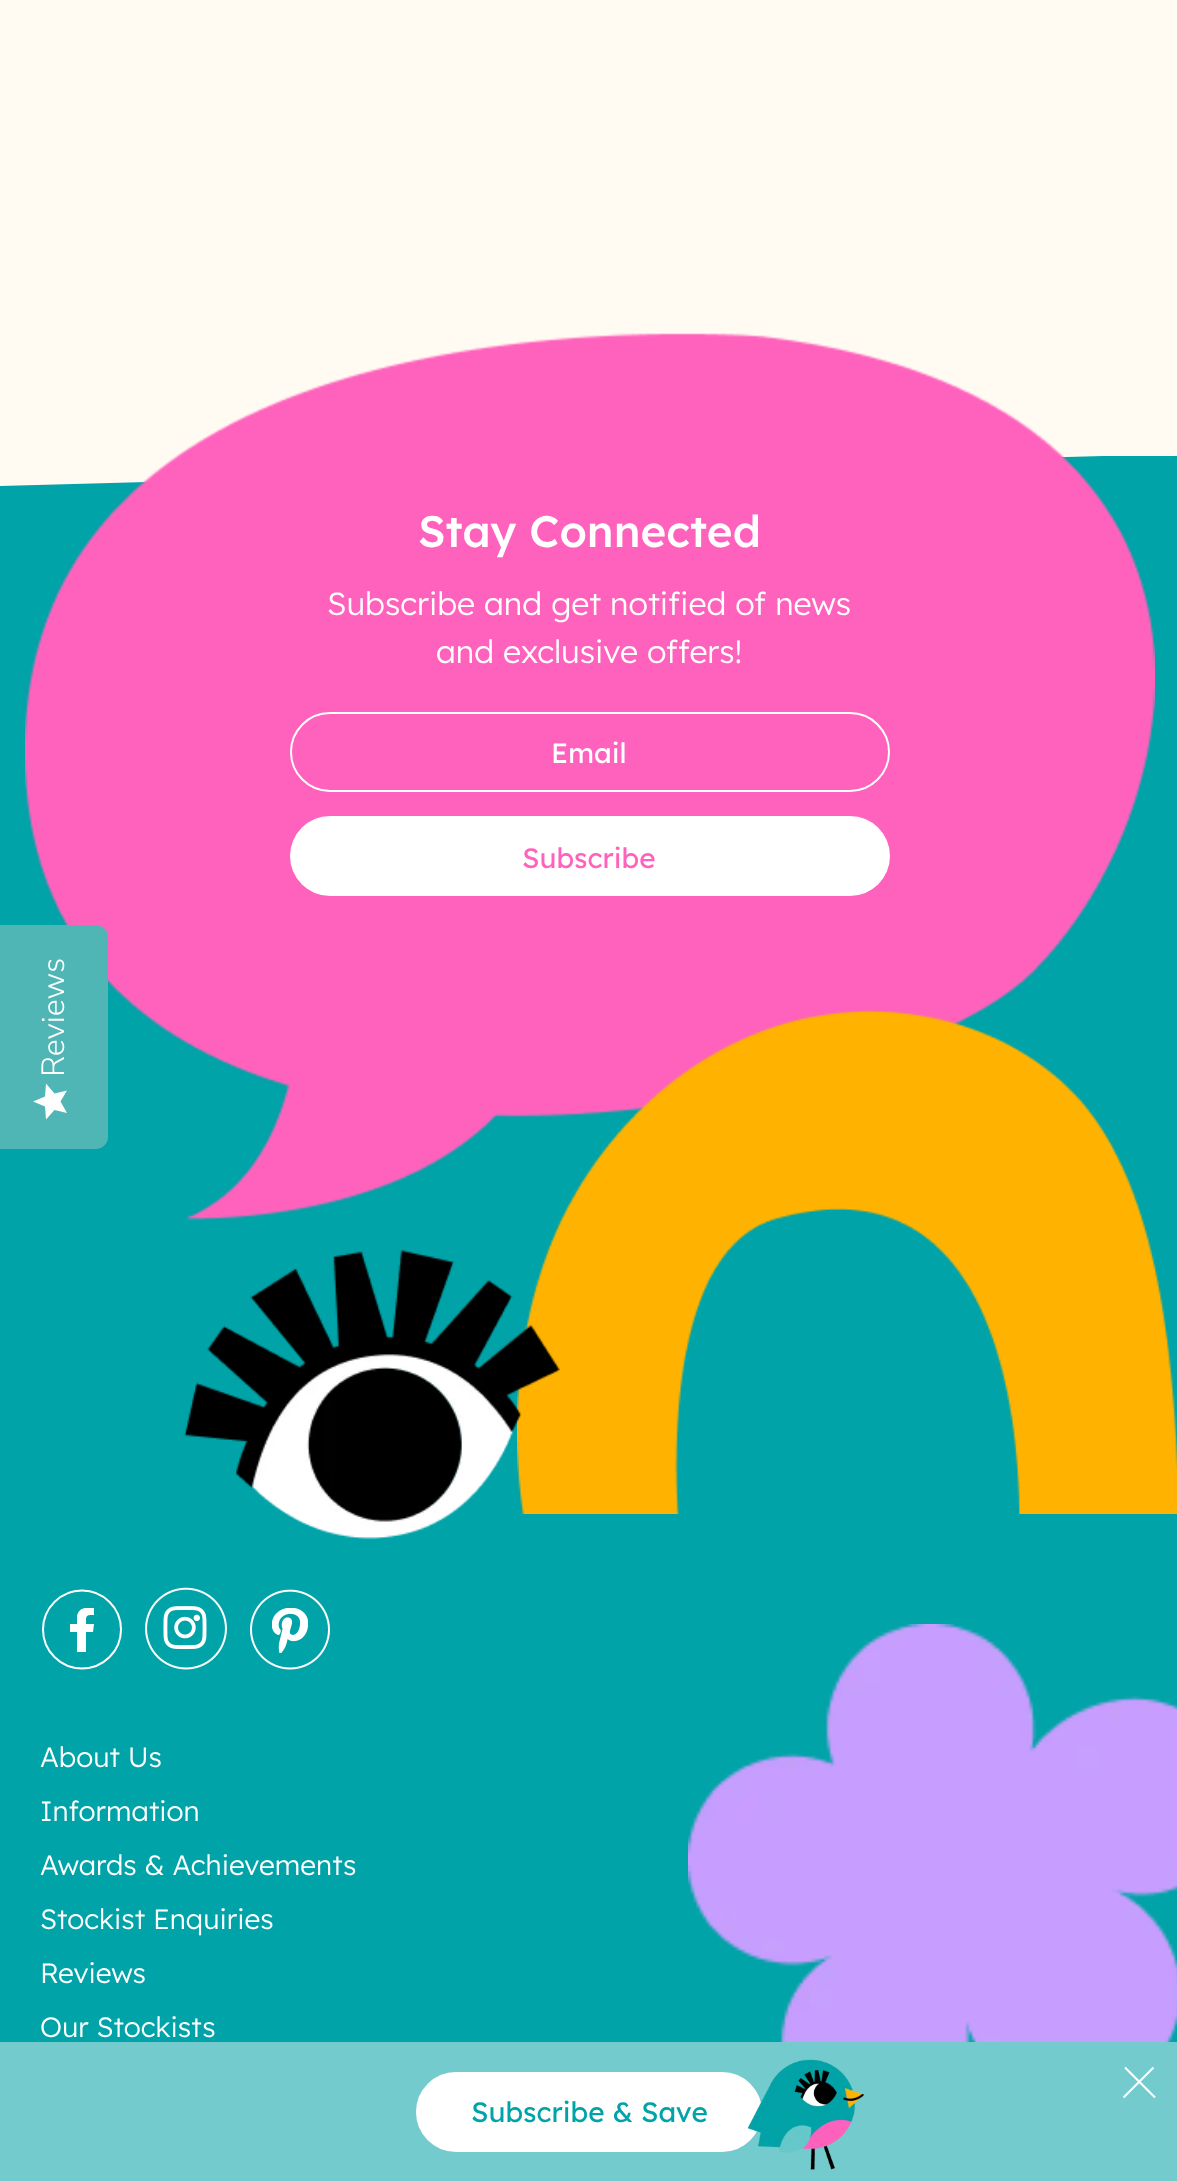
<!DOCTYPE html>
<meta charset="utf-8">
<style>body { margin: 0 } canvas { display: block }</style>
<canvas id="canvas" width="1177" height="2181"></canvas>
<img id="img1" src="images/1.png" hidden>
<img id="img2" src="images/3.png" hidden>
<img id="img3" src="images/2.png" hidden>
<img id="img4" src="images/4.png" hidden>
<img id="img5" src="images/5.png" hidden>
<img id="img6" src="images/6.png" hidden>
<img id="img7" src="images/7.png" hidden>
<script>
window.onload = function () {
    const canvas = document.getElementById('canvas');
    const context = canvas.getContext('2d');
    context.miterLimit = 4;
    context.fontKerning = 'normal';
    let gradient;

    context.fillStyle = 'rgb(255, 251, 242)';
    context.fillRect(0, 0, 1177, 2181);
    context.fillStyle = 'rgb(0, 163, 168)';
    context.fillRect(0, 456, 1177, 1586);
    context.fillStyle = 'rgb(255, 251, 242)';
    context.beginPath();
    context.moveTo(0, 454);
    context.lineTo(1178, 454);
    context.lineTo(0, 486);
    context.closePath();
    context.fill();
    context.drawImage(document.getElementById('img1'), 25, 333, 1130, 887);
    context.beginPath();
    context.roundRect(291, 713, 598, 78, 39);
    context.strokeStyle = 'rgb(255, 255, 255)';
    context.lineWidth = 2;
    context.stroke();
    context.fillStyle = 'rgb(255, 255, 255)';
    context.beginPath();
    context.roundRect(290, 816, 600, 80, 40);
    context.fill();
    context.drawImage(document.getElementById('img2'), 517, 1010, 660, 504);
    context.drawImage(document.getElementById('img3'), 184, 1250, 376, 290);
    context.beginPath();
    context.moveTo(121, 1629.5);
    context.bezierCurveTo(121, 1651, 103.5, 1668.5, 82, 1668.5);
    context.bezierCurveTo(60.5, 1668.5, 43, 1651, 43, 1629.5);
    context.bezierCurveTo(43, 1608, 60.5, 1590.5, 82, 1590.5);
    context.bezierCurveTo(103.5, 1590.5, 121, 1608, 121, 1629.5);
    context.closePath();
    context.stroke();
    context.save();
    context.beginPath();
    context.rect(70, 1608, 24, 44);
    context.clip();
    context.beginPath();
    context.moveTo(86, 1619);
    context.lineTo(86, 1624);
    context.lineTo(94, 1624);
    context.lineTo(93, 1632);
    context.lineTo(86, 1632);
    context.lineTo(86, 1652);
    context.lineTo(77, 1652);
    context.lineTo(77, 1632);
    context.lineTo(70, 1632);
    context.lineTo(70, 1624);
    context.lineTo(77, 1624);
    context.lineTo(77, 1616);
    context.bezierCurveTo(79, 1607, 87, 1607, 94, 1608);
    context.lineTo(94, 1615);
    context.bezierCurveTo(91, 1615, 86, 1614, 86, 1619);
    context.closePath();
    context.fill();
    context.restore();
    context.drawImage(document.getElementById('img4'), 145, 1587, 82, 83);
    context.drawImage(document.getElementById('img5'), 250, 1589, 80, 81);
    context.drawImage(document.getElementById('img6'), 688, 1624, 489, 418);
    context.fillStyle = 'rgb(79, 181, 181)';
    context.beginPath();
    context.moveTo(0, 1149);
    context.lineTo(0, 925);
    context.lineTo(96, 925);
    context.bezierCurveTo(103, 925, 108, 931, 108, 937);
    context.lineTo(108, 1137);
    context.bezierCurveTo(108, 1143, 103, 1149, 96, 1149);
    context.closePath();
    context.fill();
    gradient = context.createLinearGradient(33, 1120, 33, 1084);
    gradient.addColorStop(1, 'rgb(254, 254, 254)');
    gradient.addColorStop(1, 'rgb(234, 234, 234)');
    context.fillStyle = gradient;
    context.beginPath();
    context.moveTo(60.5, 1101.5);
    context.lineTo(67, 1090.5);
    context.lineTo(54.5, 1093.5);
    context.lineTo(46, 1083.5);
    context.lineTo(45, 1096.5);
    context.lineTo(33, 1101.5);
    context.lineTo(45, 1106.5);
    context.lineTo(46, 1119.5);
    context.lineTo(54.5, 1110);
    context.lineTo(67, 1113);
    context.closePath();
    context.fill();
    context.fillStyle = 'rgb(115, 203, 205)';
    context.fillRect(0, 2042, 1177, 139);
    context.beginPath();
    context.moveTo(1123.5, 2097.5);
    context.lineTo(1153.5, 2067.5);
    context.moveTo(1155, 2097.5);
    context.lineTo(1125, 2067.5);
    context.lineWidth = 2.1;
    context.stroke();
    context.fillStyle = 'rgb(255, 255, 255)';
    context.beginPath();
    context.roundRect(417, 2073, 344, 78, 39);
    context.fill();
    context.lineWidth = 2;
    context.stroke();
    context.drawImage(document.getElementById('img7'), 747, 2059, 118, 111);
    context.font = '500 44px Lexend';
    context.fillText('Stay Connected', 418, 547);
    context.font = '300 32px Lexend';
    context.fillText('Subscribe and get notified of news', 327, 615);
    context.fillText('and exclusive offers!', 436, 663);
    context.font = '28px Lexend';
    context.fillText('Email', 551, 763);
    context.fillStyle = 'rgb(255, 98, 189)';
    context.fillText('Subscribe', 522, 868);
    context.font = '300 28px Lexend';
    context.fillStyle = 'rgb(255, 255, 255)';
    context.fillText('About Us', 40, 1767);
    context.fillText('Information', 40, 1821);
    context.fillText('Awards & Achievements', 40, 1875);
    context.fillText('Stockist Enquiries', 40, 1929);
    context.fillText('Reviews', 40, 1983);
    context.fillText('Our Stockists', 40, 2037);
    context.font = '300 32px Nunito Sans';
    context.save();
    context.translate(64, 1077);
    context.rotate(-90 * Math.PI / 180);
    context.fillText('Reviews', 0, 0);
    context.restore();
    context.font = '28px Lexend';
    context.fillStyle = 'rgb(0, 163, 168)';
    context.fillText('Subscribe & Save', 471, 2122);
};
</script>
